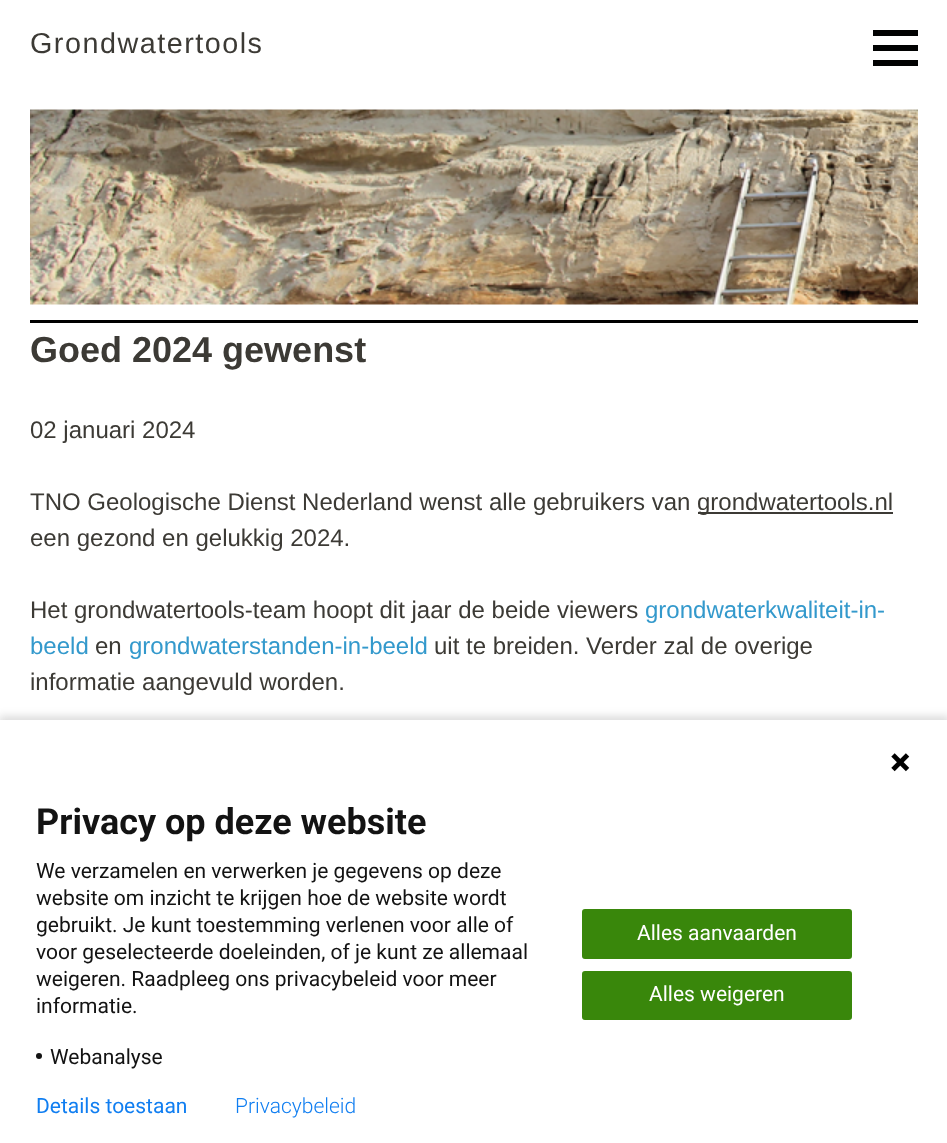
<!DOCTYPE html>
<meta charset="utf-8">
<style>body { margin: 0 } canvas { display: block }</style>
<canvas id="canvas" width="947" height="1143"></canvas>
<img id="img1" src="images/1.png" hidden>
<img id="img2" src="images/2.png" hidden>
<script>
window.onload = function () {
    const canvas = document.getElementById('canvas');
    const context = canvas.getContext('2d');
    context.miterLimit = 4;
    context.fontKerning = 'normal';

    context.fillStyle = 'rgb(255, 255, 255)';
    context.fillRect(0, 0, 947, 1143);
    context.fillStyle = 'rgb(1, 2, 2)';
    context.beginPath();
    context.moveTo(873, 30);
    context.lineTo(873, 36);
    context.lineTo(918, 36);
    context.lineTo(918, 30);
    context.closePath();
    context.moveTo(873, 45);
    context.lineTo(873, 51);
    context.lineTo(918, 51);
    context.lineTo(918, 45);
    context.closePath();
    context.moveTo(873, 60);
    context.lineTo(873, 66);
    context.lineTo(918, 66);
    context.lineTo(918, 60);
    context.closePath();
    context.fill('evenodd');
    context.fillStyle = 'rgb(0, 0, 0)';
    context.fillRect(30, 320, 888, 3);
    context.drawImage(document.getElementById('img1'), 30, 109, 888, 196);
    context.fillStyle = 'rgb(60, 58, 53)';
    context.fillRect(698, 512, 195, 2);
    context.fillStyle = 'rgba(0, 0, 0, 0.14)';
    context.filter = 'blur(4px)';
    context.beginPath();
    context.rect(-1, 716, 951, 426);
    context.fill();
    context.filter = 'none';
    context.fillStyle = 'rgb(255, 255, 255)';
    context.fillRect(0, 720, 947, 423);
    context.drawImage(document.getElementById('img2'), 891, 753, 19, 19);
    context.fillStyle = 'rgb(19, 19, 19)';
    context.beginPath();
    context.arc(39, 1056, 3, 0, 2 * Math.PI);
    context.fill();
    context.fillStyle = 'rgb(57, 135, 11)';
    context.beginPath();
    context.roundRect(583, 910, 268, 48, 2);
    context.fill();
    context.strokeStyle = 'rgb(57, 135, 11)';
    context.lineWidth = 2;
    context.stroke();
    context.beginPath();
    context.roundRect(583, 972, 268, 47, 2);
    context.fill();
    context.stroke();
    context.letterSpacing = '1.5px';
    context.font = '28.75px Liberation Sans';
    context.fillStyle = 'rgb(60, 58, 53)';
    context.fillText('Grondwatertools', 30, 53);
    context.letterSpacing = '0px';
    context.font = 'bold 36px Liberation Sans';
    context.fillText('Goed 2024 gewenst', 30, 362);
    context.font = '24px Liberation Sans';
    context.fillText('02 januari 2024', 30, 438);
    context.fillText('TNO Geologische Dienst Nederland wenst alle gebruikers van', 30, 510);
    context.fillText('grondwatertools.nl', 697, 510);
    context.fillText('een gezond en gelukkig 2024.', 30, 546);
    context.fillText('Het grondwatertools-team hoopt dit jaar de beide viewers', 30, 618);
    context.fillStyle = 'rgb(51, 153, 204)';
    context.fillText('grondwaterkwaliteit-in-', 645, 618);
    context.fillText('beeld', 30, 654);
    context.fillStyle = 'rgb(60, 58, 53)';
    context.fillText('en', 95, 654);
    context.fillStyle = 'rgb(51, 153, 204)';
    context.fillText('grondwaterstanden-in-beeld', 129, 654);
    context.fillStyle = 'rgb(60, 58, 53)';
    context.fillText('uit te breiden. Verder zal de overige', 434, 654);
    context.fillText('informatie aangevuld worden.', 30, 690);
    context.font = 'bold 36px Roboto';
    context.fillStyle = 'rgb(19, 19, 19)';
    context.fillText('Privacy op deze website', 36, 834);
    context.font = '21px Roboto';
    context.fillText('We verzamelen en verwerken je gegevens op deze', 36, 878);
    context.fillText('website om inzicht te krijgen hoe de website wordt', 36, 905);
    context.fillText('gebruikt. Je kunt toestemming verlenen voor alle of', 36, 932);
    context.fillText('voor geselecteerde doeleinden, of je kunt ze allemaal', 36, 959);
    context.fillText('weigeren. Raadpleeg ons privacybeleid voor meer', 36, 986);
    context.fillText('informatie.', 36, 1013);
    context.fillText('Webanalyse', 50, 1064);
    context.fillStyle = 'rgb(255, 255, 255)';
    context.fillText('Alles aanvaarden', 637, 940);
    context.fillText('Alles weigeren', 649, 1001);
    context.fillStyle = 'rgb(16, 126, 241)';
    context.fillText('Details toestaan', 36, 1113);
    context.font = '300 21px Roboto';
    context.fillText('Privacybeleid', 235, 1113);
};
</script>
